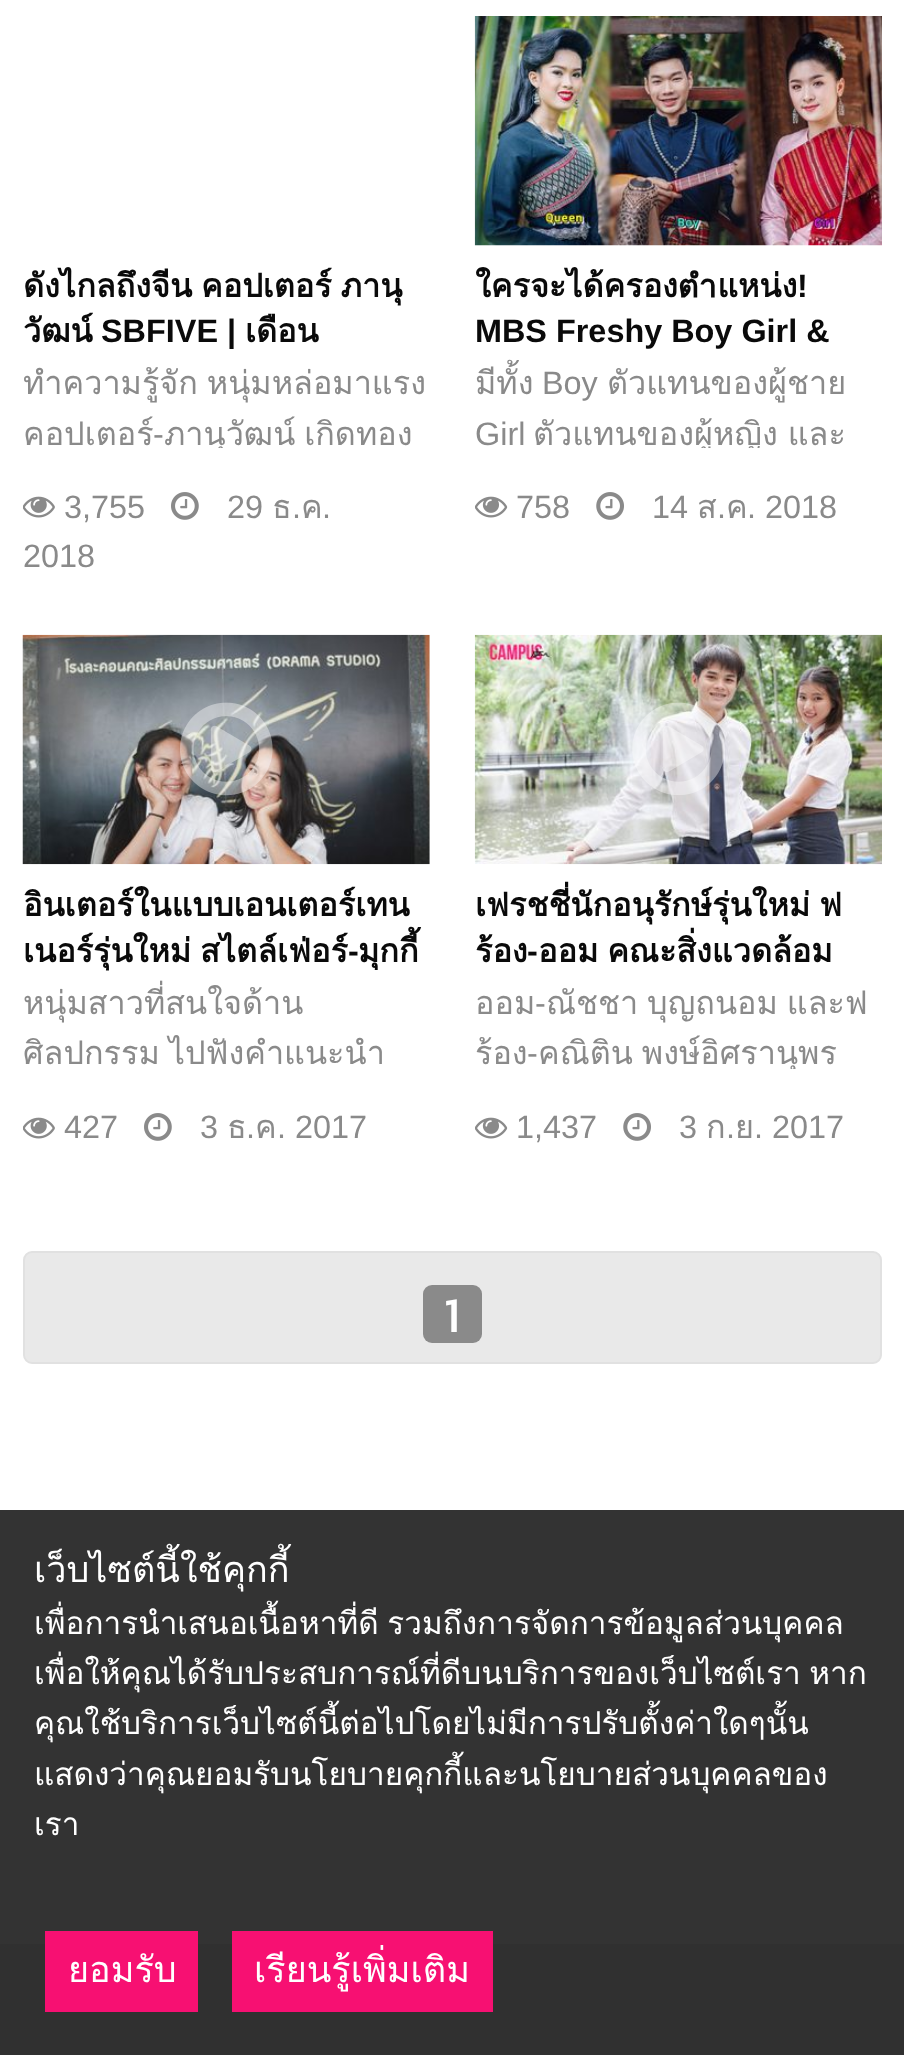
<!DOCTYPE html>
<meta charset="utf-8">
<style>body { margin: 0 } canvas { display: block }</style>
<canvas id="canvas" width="904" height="2055"></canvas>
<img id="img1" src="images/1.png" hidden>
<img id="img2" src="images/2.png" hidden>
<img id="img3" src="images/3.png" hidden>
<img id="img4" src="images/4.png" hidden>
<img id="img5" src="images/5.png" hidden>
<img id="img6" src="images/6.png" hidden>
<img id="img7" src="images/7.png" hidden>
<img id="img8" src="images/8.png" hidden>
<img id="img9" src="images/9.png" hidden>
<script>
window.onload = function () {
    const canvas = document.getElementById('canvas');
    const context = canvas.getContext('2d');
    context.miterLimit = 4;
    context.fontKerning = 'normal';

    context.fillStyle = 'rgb(255, 255, 255)';
    context.fillRect(0, 0, 904, 2055);
    context.fillStyle = 'rgb(51, 51, 51)';
    context.fillRect(0, 1510, 904, 434);
    context.drawImage(document.getElementById('img1'), 171, 492, 28, 28);
    context.drawImage(document.getElementById('img2'), 23, 496, 32, 22);
    context.drawImage(document.getElementById('img3'), 474, 16, 408, 230);
    context.drawImage(document.getElementById('img4'), 475, 496, 33, 22);
    context.drawImage(document.getElementById('img5'), 596, 492, 28, 28);
    context.drawImage(document.getElementById('img6'), 22, 634, 408, 231);
    context.drawImage(document.getElementById('img7'), 180, 702, 93, 94);
    context.drawImage(document.getElementById('img2'), 23, 1117, 32, 22);
    context.drawImage(document.getElementById('img1'), 144, 1113, 28, 28);
    context.drawImage(document.getElementById('img8'), 474, 634, 408, 231);
    context.drawImage(document.getElementById('img9'), 632, 702, 93, 93);
    context.drawImage(document.getElementById('img4'), 475, 1117, 33, 22);
    context.drawImage(document.getElementById('img5'), 623, 1113, 28, 28);
    context.fillStyle = 'rgb(233, 233, 233)';
    context.beginPath();
    context.roundRect(24, 1252, 857, 111, 8);
    context.fill();
    context.strokeStyle = 'rgb(225, 225, 225)';
    context.lineWidth = 2;
    context.stroke();
    context.fillStyle = 'rgb(138, 138, 138)';
    context.beginPath();
    context.roundRect(423, 1285, 59, 58, 9);
    context.fill();
    context.fillStyle = 'rgb(48, 48, 48)';
    context.fillRect(0, 1944, 904, 111);
    context.fillStyle = 'rgb(247, 16, 114)';
    context.fillRect(45, 1931, 153, 81);
    context.fillRect(232, 1931, 261, 81);
    context.save();
    context.beginPath();
    context.rect(23, 263, 407, 86);
    context.clip();
    context.wordSpacing = '-2px';
    context.font = 'bold 32.4px Loma';
    context.fillStyle = 'rgb(10, 10, 10)';
    context.fillText('ดังไกลถึงจีน คอปเตอร์ ภานุ', 23, 297);
    context.wordSpacing = '0px';
    context.fillText('วัฒน์', 23, 342);
    context.font = 'bold 32.4px Liberation Sans';
    context.fillText('SBFIVE |', 101, 342);
    context.restore();
    context.font = 'bold 32.4px Loma';
    context.fillStyle = 'rgb(10, 10, 10)';
    context.fillText('เดือน', 245, 342);
    context.save();
    context.beginPath();
    context.rect(23, 358, 407, 90);
    context.clip();
    context.wordSpacing = '-2px';
    context.font = '32.4px Loma';
    context.fillStyle = 'rgb(138, 138, 138)';
    context.fillText('ทำความรู้จัก หนุ่มหล่อมาแรง', 23, 394);
    context.restore();
    context.font = '32.4px Loma';
    context.fillStyle = 'rgb(138, 138, 138)';
    context.fillText('คอปเตอร์', 23, 445);
    context.font = '32.4px Liberation Sans';
    context.fillText('-', 153, 445);
    context.save();
    context.beginPath();
    context.rect(23, 358, 407, 90);
    context.clip();
    context.wordSpacing = '-2px';
    context.font = '32.4px Loma';
    context.fillText('ภานุวัฒน์ เกิดทอง', 164, 445);
    context.restore();
    context.fillText('29', 227, 518);
    context.font = '32.4px Loma';
    context.fillText('ธ', 272, 518);
    context.font = '32.4px Liberation Sans';
    context.fillText('.', 292, 518);
    context.font = '32.4px Loma';
    context.fillText('ค', 301, 518);
    context.font = '32.4px Liberation Sans';
    context.fillText('.', 322, 518);
    context.fillText('2018', 23, 567);
    context.fillText('3,755', 64, 518);
    context.font = 'bold 32.4px Loma';
    context.fillStyle = 'rgb(10, 10, 10)';
    context.fillText('ใครจะได้ครองตำแหน่ง', 475, 297);
    context.font = 'bold 32.4px Liberation Sans';
    context.fillText('!', 797, 297);
    context.fillText('MBS Freshy Boy Girl &', 475, 342);
    context.save();
    context.beginPath();
    context.rect(475, 358, 407, 90);
    context.clip();
    context.font = '32.4px Loma';
    context.fillStyle = 'rgb(138, 138, 138)';
    context.fillText('มีทั้ง', 475, 394);
    context.restore();
    context.font = '32.4px Liberation Sans';
    context.fillStyle = 'rgb(138, 138, 138)';
    context.fillText('Boy', 542, 394);
    context.font = '32.4px Loma';
    context.fillText('ตัวแทนของผู้ชาย', 607, 394);
    context.font = '32.4px Liberation Sans';
    context.fillText('Girl', 475, 445);
    context.save();
    context.beginPath();
    context.rect(475, 358, 407, 90);
    context.clip();
    context.wordSpacing = '-1px';
    context.font = '32.4px Loma';
    context.fillText('ตัวแทนของผู้หญิง และ', 533, 445);
    context.restore();
    context.fillText('758', 516, 518);
    context.fillText('14', 652, 518);
    context.font = '32.4px Loma';
    context.fillText('ส', 697, 518);
    context.font = '32.4px Liberation Sans';
    context.fillText('.', 717, 518);
    context.font = '32.4px Loma';
    context.fillText('ค', 726, 518);
    context.font = '32.4px Liberation Sans';
    context.fillText('. 2018', 747, 518);
    context.save();
    context.beginPath();
    context.rect(23, 882, 407, 88);
    context.clip();
    context.font = 'bold 32.4px Loma';
    context.fillStyle = 'rgb(10, 10, 10)';
    context.fillText('อินเตอร์ในแบบเอนเตอร์เทน', 23, 916);
    context.restore();
    context.wordSpacing = '-2px';
    context.font = 'bold 32.4px Loma';
    context.fillStyle = 'rgb(10, 10, 10)';
    context.fillText('เนอร์รุ่นใหม่ สไตล์เฟ่อร์', 23, 962);
    context.wordSpacing = '0px';
    context.font = 'bold 32.4px Liberation Sans';
    context.fillText('-', 348, 962);
    context.save();
    context.beginPath();
    context.rect(23, 882, 407, 88);
    context.clip();
    context.font = 'bold 32.4px Loma';
    context.fillText('มุกกี้', 358, 962);
    context.restore();
    context.font = '32.4px Loma';
    context.fillStyle = 'rgb(138, 138, 138)';
    context.fillText('หนุ่มสาวที่สนใจด้าน', 23, 1014);
    context.save();
    context.beginPath();
    context.rect(23, 979, 407, 90);
    context.clip();
    context.wordSpacing = '-2px';
    context.fillText('ศิลปกรรม ไปฟังคำแนะนำ', 23, 1064);
    context.restore();
    context.font = '32.4px Liberation Sans';
    context.fillText('427', 64, 1138);
    context.fillText('3', 200, 1138);
    context.font = '32.4px Loma';
    context.fillText('ธ', 227, 1138);
    context.font = '32.4px Liberation Sans';
    context.fillText('.', 246, 1138);
    context.font = '32.4px Loma';
    context.fillText('ค', 255, 1138);
    context.font = '32.4px Liberation Sans';
    context.fillText('. 2017', 277, 1138);
    context.wordSpacing = '-2px';
    context.font = 'bold 32.4px Loma';
    context.fillStyle = 'rgb(10, 10, 10)';
    context.fillText('เฟรชชี่นักอนุรักษ์รุ่นใหม่ ฟ', 475, 916);
    context.save();
    context.beginPath();
    context.rect(475, 882, 407, 88);
    context.clip();
    context.wordSpacing = '0px';
    context.fillText('ร้อง', 475, 962);
    context.restore();
    context.wordSpacing = '0px';
    context.font = 'bold 32.4px Liberation Sans';
    context.fillText('-', 527, 962);
    context.wordSpacing = '-2px';
    context.font = 'bold 32.4px Loma';
    context.fillText('ออม คณะสิ่งแวดล้อม', 538, 962);
    context.wordSpacing = '0px';
    context.font = '32.4px Loma';
    context.fillStyle = 'rgb(138, 138, 138)';
    context.fillText('ออม', 475, 1014);
    context.font = '32.4px Liberation Sans';
    context.fillText('-', 535, 1014);
    context.wordSpacing = '-2px';
    context.font = '32.4px Loma';
    context.fillText('ณัชชา บุญถนอม และฟ', 546, 1014);
    context.save();
    context.beginPath();
    context.rect(475, 979, 407, 90);
    context.clip();
    context.wordSpacing = '0px';
    context.fillText('ร้อง', 475, 1064);
    context.restore();
    context.wordSpacing = '0px';
    context.font = '32.4px Liberation Sans';
    context.fillText('-', 527, 1064);
    context.save();
    context.beginPath();
    context.rect(475, 979, 407, 90);
    context.clip();
    context.wordSpacing = '-2px';
    context.font = '32.4px Loma';
    context.fillText('คณิติน พงษ์อิศรานุพร', 538, 1064);
    context.restore();
    context.fillText('1,437', 516, 1138);
    context.fillText('3', 679, 1138);
    context.font = '32.4px Loma';
    context.fillText('ก', 706, 1138);
    context.font = '32.4px Liberation Sans';
    context.fillText('.', 726, 1138);
    context.font = '32.4px Loma';
    context.fillText('ย', 735, 1138);
    context.font = '32.4px Liberation Sans';
    context.fillText('. 2017', 754, 1138);
    context.font = '50px Kanit';
    context.fillStyle = 'rgb(255, 255, 255)';
    context.fillText('1', 444, 1332);
    context.font = '36px Loma';
    context.fillText('เว็บไซต์นี้ใช้คุกกี้', 34, 1582);
    context.wordSpacing = '-2px';
    context.font = '31.5px Loma';
    context.fillText('เพื่อการนำเสนอเนื้อหาที่ดี รวมถึงการจัดการข้อมูลส่วนบุคคล', 34, 1634);
    context.fillText('เพื่อให้คุณได้รับประสบการณ์ที่ดีบนบริการของเว็บไซต์เรา หาก', 34, 1684);
    context.wordSpacing = '0px';
    context.fillText('คุณใช้บริการเว็บไซต์นี้ต่อไปโดยไม่มีการปรับตั้งค่าใดๆนั้น', 34, 1734);
    context.fillText('แสดงว่าคุณยอมรับนโยบายคุกกี้และนโยบายส่วนบุคคลของ', 34, 1785);
    context.fillText('เรา', 34, 1835);
    context.font = '36px Loma';
    context.fillText('ยอมรับ', 68, 1982);
    context.fillText('เรียนรู้เพิ่มเติม', 254, 1982);
};
</script>
